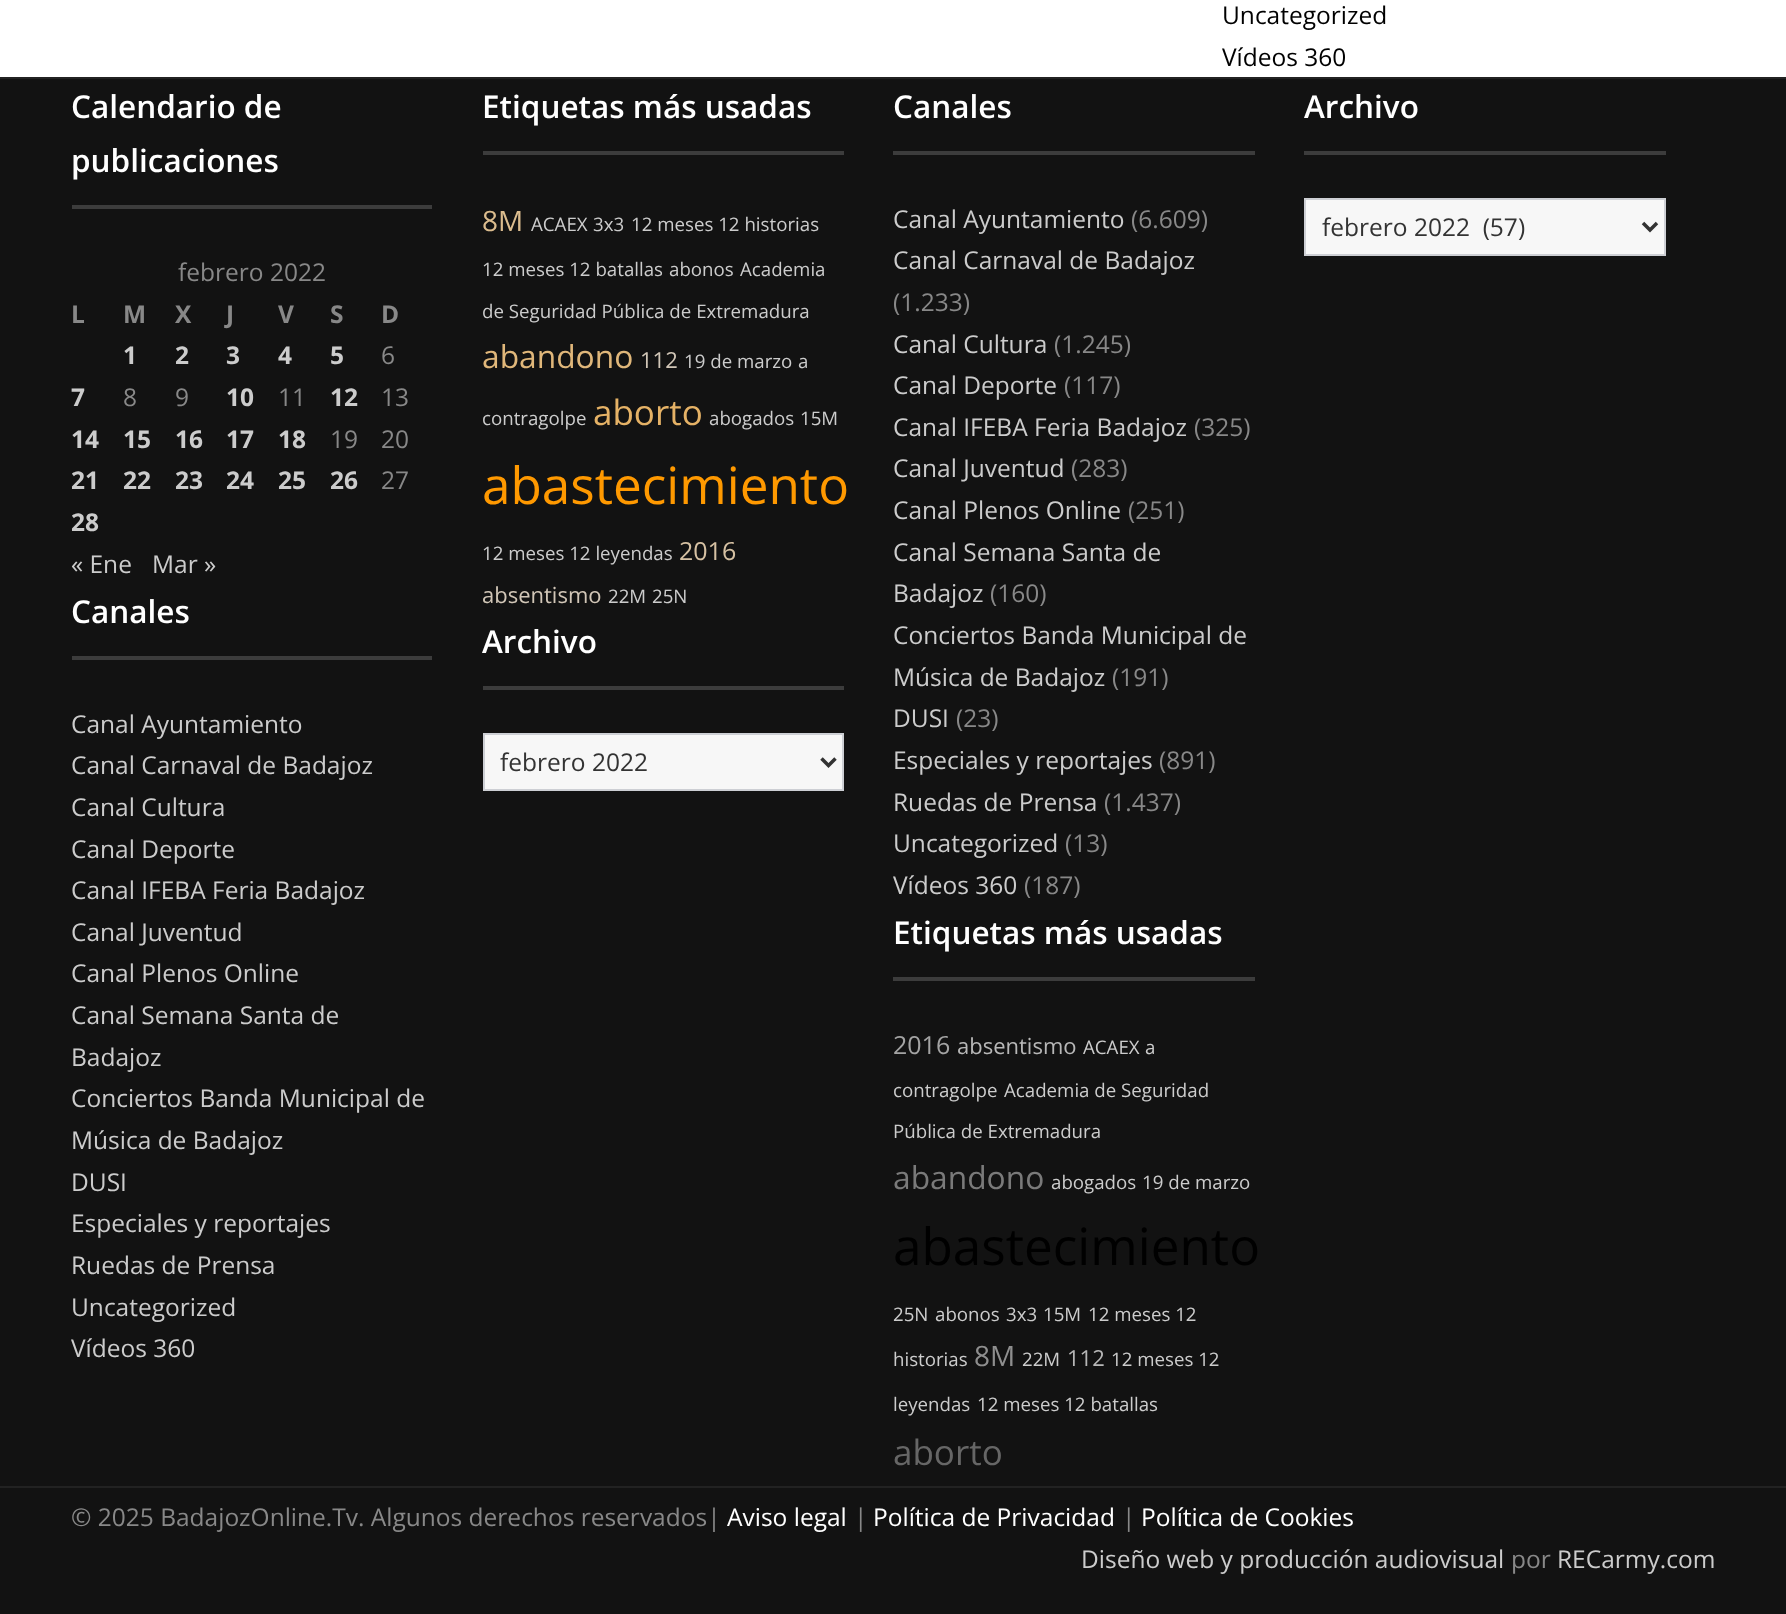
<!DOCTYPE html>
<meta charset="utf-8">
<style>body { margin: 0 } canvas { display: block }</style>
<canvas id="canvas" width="1786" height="1614"></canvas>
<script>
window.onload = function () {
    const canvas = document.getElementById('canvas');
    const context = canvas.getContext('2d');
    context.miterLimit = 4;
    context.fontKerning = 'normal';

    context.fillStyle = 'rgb(255, 255, 255)';
    context.fillRect(0, 0, 1786, 1614);
    context.fillStyle = 'rgb(18, 18, 18)';
    context.fillRect(0, 79, 1786, 1535);
    context.fillStyle = 'rgb(34, 34, 34)';
    context.fillRect(0, 77, 1786, 2);
    context.fillStyle = 'rgb(60, 60, 60)';
    context.fillRect(72, 205, 360, 4);
    context.fillRect(72, 656, 360, 4);
    context.fillRect(483, 151, 361, 4);
    context.fillRect(483, 686, 361, 4);
    context.fillStyle = 'rgb(247, 247, 247)';
    context.beginPath();
    context.rect(484, 734, 359, 56);
    context.fill();
    context.strokeStyle = 'rgb(205, 207, 212)';
    context.lineWidth = 2;
    context.stroke();
    context.beginPath();
    context.moveTo(821.5, 758.5);
    context.lineTo(828.5, 765.5);
    context.lineTo(835.5, 758.5);
    context.strokeStyle = 'rgb(51, 51, 51)';
    context.lineWidth = 3.5;
    context.stroke();
    context.fillStyle = 'rgb(60, 60, 60)';
    context.fillRect(893, 151, 362, 4);
    context.fillRect(893, 977, 362, 4);
    context.fillRect(1304, 151, 362, 4);
    context.fillStyle = 'rgb(247, 247, 247)';
    context.beginPath();
    context.rect(1305, 199, 360, 56);
    context.fill();
    context.strokeStyle = 'rgb(205, 207, 212)';
    context.lineWidth = 2;
    context.stroke();
    context.beginPath();
    context.moveTo(1643, 223);
    context.lineTo(1650, 230);
    context.lineTo(1657, 223);
    context.strokeStyle = 'rgb(51, 51, 51)';
    context.lineWidth = 3.5;
    context.stroke();
    context.fillStyle = 'rgb(34, 34, 34)';
    context.fillRect(0, 1486, 1786, 2);
    context.font = '24.5px Open Sans';
    context.fillStyle = 'rgb(0, 0, 0)';
    context.fillText('Uncategorized', 1222, 24);
    context.fillText('Vídeos 360', 1222, 66);
    context.font = '600 31.5px Open Sans';
    context.fillStyle = 'rgb(255, 255, 255)';
    context.fillText('Calendario de', 71, 118);
    context.fillText('publicaciones', 71, 172);
    context.font = '24.5px Open Sans';
    context.fillStyle = 'rgb(136, 136, 136)';
    context.fillText('febrero 2022', 178, 281);
    context.font = 'bold 24.5px Open Sans';
    context.fillText('L', 71, 323);
    context.fillText('M', 123, 323);
    context.fillText('X', 175, 323);
    context.fillText('J', 226, 323);
    context.fillText('V', 278, 323);
    context.fillText('S', 330, 323);
    context.fillText('D', 381, 323);
    context.fillStyle = 'rgb(204, 204, 204)';
    context.fillText('1', 123, 364);
    context.fillText('2', 175, 364);
    context.fillText('3', 226, 364);
    context.fillText('4', 278, 364);
    context.fillText('5', 330, 364);
    context.font = '24.5px Open Sans';
    context.fillStyle = 'rgb(136, 136, 136)';
    context.fillText('6', 381, 364);
    context.font = 'bold 24.5px Open Sans';
    context.fillStyle = 'rgb(204, 204, 204)';
    context.fillText('7', 71, 406);
    context.font = '24.5px Open Sans';
    context.fillStyle = 'rgb(136, 136, 136)';
    context.fillText('8', 123, 406);
    context.fillText('9', 175, 406);
    context.font = 'bold 24.5px Open Sans';
    context.fillStyle = 'rgb(204, 204, 204)';
    context.fillText('10', 226, 406);
    context.font = '24.5px Open Sans';
    context.fillStyle = 'rgb(136, 136, 136)';
    context.fillText('11', 278, 406);
    context.font = 'bold 24.5px Open Sans';
    context.fillStyle = 'rgb(204, 204, 204)';
    context.fillText('12', 330, 406);
    context.font = '24.5px Open Sans';
    context.fillStyle = 'rgb(136, 136, 136)';
    context.fillText('13', 381, 406);
    context.font = 'bold 24.5px Open Sans';
    context.fillStyle = 'rgb(204, 204, 204)';
    context.fillText('14', 71, 448);
    context.fillText('15', 123, 448);
    context.fillText('16', 175, 448);
    context.fillText('17', 226, 448);
    context.fillText('18', 278, 448);
    context.font = '24.5px Open Sans';
    context.fillStyle = 'rgb(136, 136, 136)';
    context.fillText('19', 330, 448);
    context.fillText('20', 381, 448);
    context.font = 'bold 24.5px Open Sans';
    context.fillStyle = 'rgb(204, 204, 204)';
    context.fillText('21', 71, 489);
    context.fillText('22', 123, 489);
    context.fillText('23', 175, 489);
    context.fillText('24', 226, 489);
    context.fillText('25', 278, 489);
    context.fillText('26', 330, 489);
    context.font = '24.5px Open Sans';
    context.fillStyle = 'rgb(136, 136, 136)';
    context.fillText('27', 381, 489);
    context.font = 'bold 24.5px Open Sans';
    context.fillStyle = 'rgb(204, 204, 204)';
    context.fillText('28', 71, 531);
    context.font = '24.5px Open Sans';
    context.fillText('« Ene', 71, 573);
    context.fillText('Mar »', 152, 573);
    context.font = '600 31.5px Open Sans';
    context.fillStyle = 'rgb(255, 255, 255)';
    context.fillText('Canales', 71, 623);
    context.font = '24.5px Open Sans';
    context.fillStyle = 'rgb(204, 204, 204)';
    context.fillText('Canal Ayuntamiento', 71, 733);
    context.fillText('Canal Carnaval de Badajoz', 71, 774);
    context.fillText('Canal Cultura', 71, 816);
    context.fillText('Canal Deporte', 71, 858);
    context.fillText('Canal IFEBA Feria Badajoz', 71, 899);
    context.fillText('Canal Juventud', 71, 941);
    context.fillText('Canal Plenos Online', 71, 982);
    context.fillText('Canal Semana Santa de', 71, 1024);
    context.fillText('Badajoz', 71, 1066);
    context.fillText('Conciertos Banda Municipal de', 71, 1107);
    context.fillText('Música de Badajoz', 71, 1149);
    context.fillText('DUSI', 71, 1191);
    context.fillText('Especiales y reportajes', 71, 1232);
    context.fillText('Ruedas de Prensa', 71, 1274);
    context.fillText('Uncategorized', 71, 1316);
    context.fillText('Vídeos 360', 71, 1357);
    context.font = '600 31.5px Open Sans';
    context.fillStyle = 'rgb(255, 255, 255)';
    context.fillText('Etiquetas más usadas', 482, 118);
    context.font = '28px Open Sans';
    context.fillStyle = 'rgb(219, 188, 142)';
    context.fillText('8M', 482, 231);
    context.font = '18.7px Open Sans';
    context.fillStyle = 'rgb(204, 204, 204)';
    context.fillText('ACAEX', 531, 231);
    context.fillText('3x3', 593, 231);
    context.fillText('12 meses 12 historias', 631, 231);
    context.fillText('12 meses 12 batallas', 482, 276);
    context.fillText('abonos', 669, 276);
    context.fillText('Academia', 740, 276);
    context.fillText('de Seguridad Pública de Extremadura', 482, 318);
    context.font = '31.75px Open Sans';
    context.fillStyle = 'rgb(224, 183, 122)';
    context.fillText('abandono', 482, 368);
    context.font = '22px Open Sans';
    context.fillStyle = 'rgb(209, 198, 183)';
    context.fillText('112', 640, 368);
    context.font = '18.7px Open Sans';
    context.fillStyle = 'rgb(204, 204, 204)';
    context.fillText('19 de marzo', 684, 368);
    context.fillText('a', 798, 368);
    context.fillText('contragolpe', 482, 425);
    context.font = '35px Open Sans';
    context.fillStyle = 'rgb(229, 178, 102)';
    context.fillText('aborto', 593, 425);
    context.font = '18.7px Open Sans';
    context.fillStyle = 'rgb(204, 204, 204)';
    context.fillText('abogados', 709, 425);
    context.fillText('15M', 800, 425);
    context.font = '51.25px Open Sans';
    context.fillStyle = 'rgb(255, 153, 0)';
    context.fillText('abastecimiento', 482, 504);
    context.font = '18.7px Open Sans';
    context.fillStyle = 'rgb(204, 204, 204)';
    context.fillText('12 meses 12 leyendas', 482, 560);
    context.font = '25px Open Sans';
    context.fillStyle = 'rgb(214, 193, 163)';
    context.fillText('2016', 679, 560);
    context.font = '22px Open Sans';
    context.fillStyle = 'rgb(209, 198, 183)';
    context.fillText('absentismo', 482, 603);
    context.font = '18.7px Open Sans';
    context.fillStyle = 'rgb(204, 204, 204)';
    context.fillText('22M', 608, 603);
    context.fillText('25N', 652, 603);
    context.font = '600 31.5px Open Sans';
    context.fillStyle = 'rgb(255, 255, 255)';
    context.fillText('Archivo', 482, 653);
    context.font = '24.5px Open Sans';
    context.fillStyle = 'rgb(51, 51, 51)';
    context.fillText('febrero 2022', 500, 771);
    context.font = '600 31.5px Open Sans';
    context.fillStyle = 'rgb(255, 255, 255)';
    context.fillText('Canales', 893, 118);
    context.font = '24.5px Open Sans';
    context.fillStyle = 'rgb(204, 204, 204)';
    context.fillText('Canal Ayuntamiento', 893, 228);
    context.fillStyle = 'rgb(136, 136, 136)';
    context.fillText('(6.609)', 1131, 228);
    context.fillStyle = 'rgb(204, 204, 204)';
    context.fillText('Canal Carnaval de Badajoz', 893, 269);
    context.fillStyle = 'rgb(136, 136, 136)';
    context.fillText('(1.233)', 893, 311);
    context.fillStyle = 'rgb(204, 204, 204)';
    context.fillText('Canal Cultura', 893, 353);
    context.fillStyle = 'rgb(136, 136, 136)';
    context.fillText('(1.245)', 1054, 353);
    context.fillStyle = 'rgb(204, 204, 204)';
    context.fillText('Canal Deporte', 893, 394);
    context.fillStyle = 'rgb(136, 136, 136)';
    context.fillText('(117)', 1064, 394);
    context.fillStyle = 'rgb(204, 204, 204)';
    context.fillText('Canal IFEBA Feria Badajoz', 893, 436);
    context.fillStyle = 'rgb(136, 136, 136)';
    context.fillText('(325)', 1194, 436);
    context.fillStyle = 'rgb(204, 204, 204)';
    context.fillText('Canal Juventud', 893, 477);
    context.fillStyle = 'rgb(136, 136, 136)';
    context.fillText('(283)', 1071, 477);
    context.fillStyle = 'rgb(204, 204, 204)';
    context.fillText('Canal Plenos Online', 893, 519);
    context.fillStyle = 'rgb(136, 136, 136)';
    context.fillText('(251)', 1128, 519);
    context.fillStyle = 'rgb(204, 204, 204)';
    context.fillText('Canal Semana Santa de', 893, 561);
    context.fillText('Badajoz', 893, 602);
    context.fillStyle = 'rgb(136, 136, 136)';
    context.fillText('(160)', 990, 602);
    context.fillStyle = 'rgb(204, 204, 204)';
    context.fillText('Conciertos Banda Municipal de', 893, 644);
    context.fillText('Música de Badajoz', 893, 686);
    context.fillStyle = 'rgb(136, 136, 136)';
    context.fillText('(191)', 1112, 686);
    context.fillStyle = 'rgb(204, 204, 204)';
    context.fillText('DUSI', 893, 727);
    context.fillStyle = 'rgb(136, 136, 136)';
    context.fillText('(23)', 956, 727);
    context.fillStyle = 'rgb(204, 204, 204)';
    context.fillText('Especiales y reportajes', 893, 769);
    context.fillStyle = 'rgb(136, 136, 136)';
    context.fillText('(891)', 1159, 769);
    context.fillStyle = 'rgb(204, 204, 204)';
    context.fillText('Ruedas de Prensa', 893, 811);
    context.fillStyle = 'rgb(136, 136, 136)';
    context.fillText('(1.437)', 1104, 811);
    context.fillStyle = 'rgb(204, 204, 204)';
    context.fillText('Uncategorized', 893, 852);
    context.fillStyle = 'rgb(136, 136, 136)';
    context.fillText('(13)', 1065, 852);
    context.fillStyle = 'rgb(204, 204, 204)';
    context.fillText('Vídeos 360', 893, 894);
    context.fillStyle = 'rgb(136, 136, 136)';
    context.fillText('(187)', 1024, 894);
    context.font = '600 31.5px Open Sans';
    context.fillStyle = 'rgb(255, 255, 255)';
    context.fillText('Etiquetas más usadas', 893, 944);
    context.font = '25px Open Sans';
    context.fillStyle = 'rgb(163, 163, 163)';
    context.fillText('2016', 893, 1054);
    context.font = '22px Open Sans';
    context.fillStyle = 'rgb(183, 183, 183)';
    context.fillText('absentismo', 957, 1054);
    context.font = '18.7px Open Sans';
    context.fillStyle = 'rgb(204, 204, 204)';
    context.fillText('ACAEX', 1083, 1054);
    context.fillText('a', 1145, 1054);
    context.fillText('contragolpe', 893, 1097);
    context.fillText('Academia de Seguridad', 1004, 1097);
    context.fillText('Pública de Extremadura', 893, 1138);
    context.font = '31.75px Open Sans';
    context.fillStyle = 'rgb(122, 122, 122)';
    context.fillText('abandono', 893, 1189);
    context.font = '18.7px Open Sans';
    context.fillStyle = 'rgb(204, 204, 204)';
    context.fillText('abogados', 1051, 1189);
    context.fillText('19 de marzo', 1142, 1189);
    context.font = '51.25px Open Sans';
    context.fillStyle = 'rgb(0, 0, 0)';
    context.fillText('abastecimiento', 893, 1265);
    context.font = '18.7px Open Sans';
    context.fillStyle = 'rgb(204, 204, 204)';
    context.fillText('25N', 893, 1321);
    context.fillText('abonos', 935, 1321);
    context.fillText('3x3', 1006, 1321);
    context.fillText('15M', 1043, 1321);
    context.fillText('12 meses 12', 1088, 1321);
    context.fillText('historias', 893, 1366);
    context.font = '28px Open Sans';
    context.fillStyle = 'rgb(142, 142, 142)';
    context.fillText('8M', 974, 1366);
    context.font = '18.7px Open Sans';
    context.fillStyle = 'rgb(204, 204, 204)';
    context.fillText('22M', 1022, 1366);
    context.font = '22px Open Sans';
    context.fillStyle = 'rgb(183, 183, 183)';
    context.fillText('112', 1067, 1366);
    context.font = '18.7px Open Sans';
    context.fillStyle = 'rgb(204, 204, 204)';
    context.fillText('12 meses 12', 1111, 1366);
    context.fillText('leyendas', 893, 1411);
    context.fillText('12 meses 12 batallas', 977, 1411);
    context.font = '35px Open Sans';
    context.fillStyle = 'rgb(102, 102, 102)';
    context.fillText('aborto', 893, 1465);
    context.font = '600 31.5px Open Sans';
    context.fillStyle = 'rgb(255, 255, 255)';
    context.fillText('Archivo', 1304, 118);
    context.font = '24.5px Open Sans';
    context.fillStyle = 'rgb(51, 51, 51)';
    context.fillText('febrero 2022  (57)', 1322, 236);
    context.fillStyle = 'rgb(136, 136, 136)';
    context.fillText('© 2025 BadajozOnline.Tv. Algunos derechos reservados|', 71, 1526);
    context.fillStyle = 'rgb(255, 255, 255)';
    context.fillText('Aviso legal', 727, 1526);
    context.fillStyle = 'rgb(136, 136, 136)';
    context.fillText('|', 854, 1526);
    context.fillStyle = 'rgb(255, 255, 255)';
    context.fillText('Política de Privacidad', 873, 1526);
    context.fillStyle = 'rgb(136, 136, 136)';
    context.fillText('|', 1122, 1526);
    context.fillStyle = 'rgb(255, 255, 255)';
    context.fillText('Política de Cookies', 1141, 1526);
    context.fillStyle = 'rgb(204, 204, 204)';
    context.fillText('Diseño web y producción audiovisual', 1081, 1568);
    context.fillStyle = 'rgb(136, 136, 136)';
    context.fillText('por', 1511, 1568);
    context.fillStyle = 'rgb(204, 204, 204)';
    context.fillText('RECarmy.com', 1557, 1568);
};
</script>
